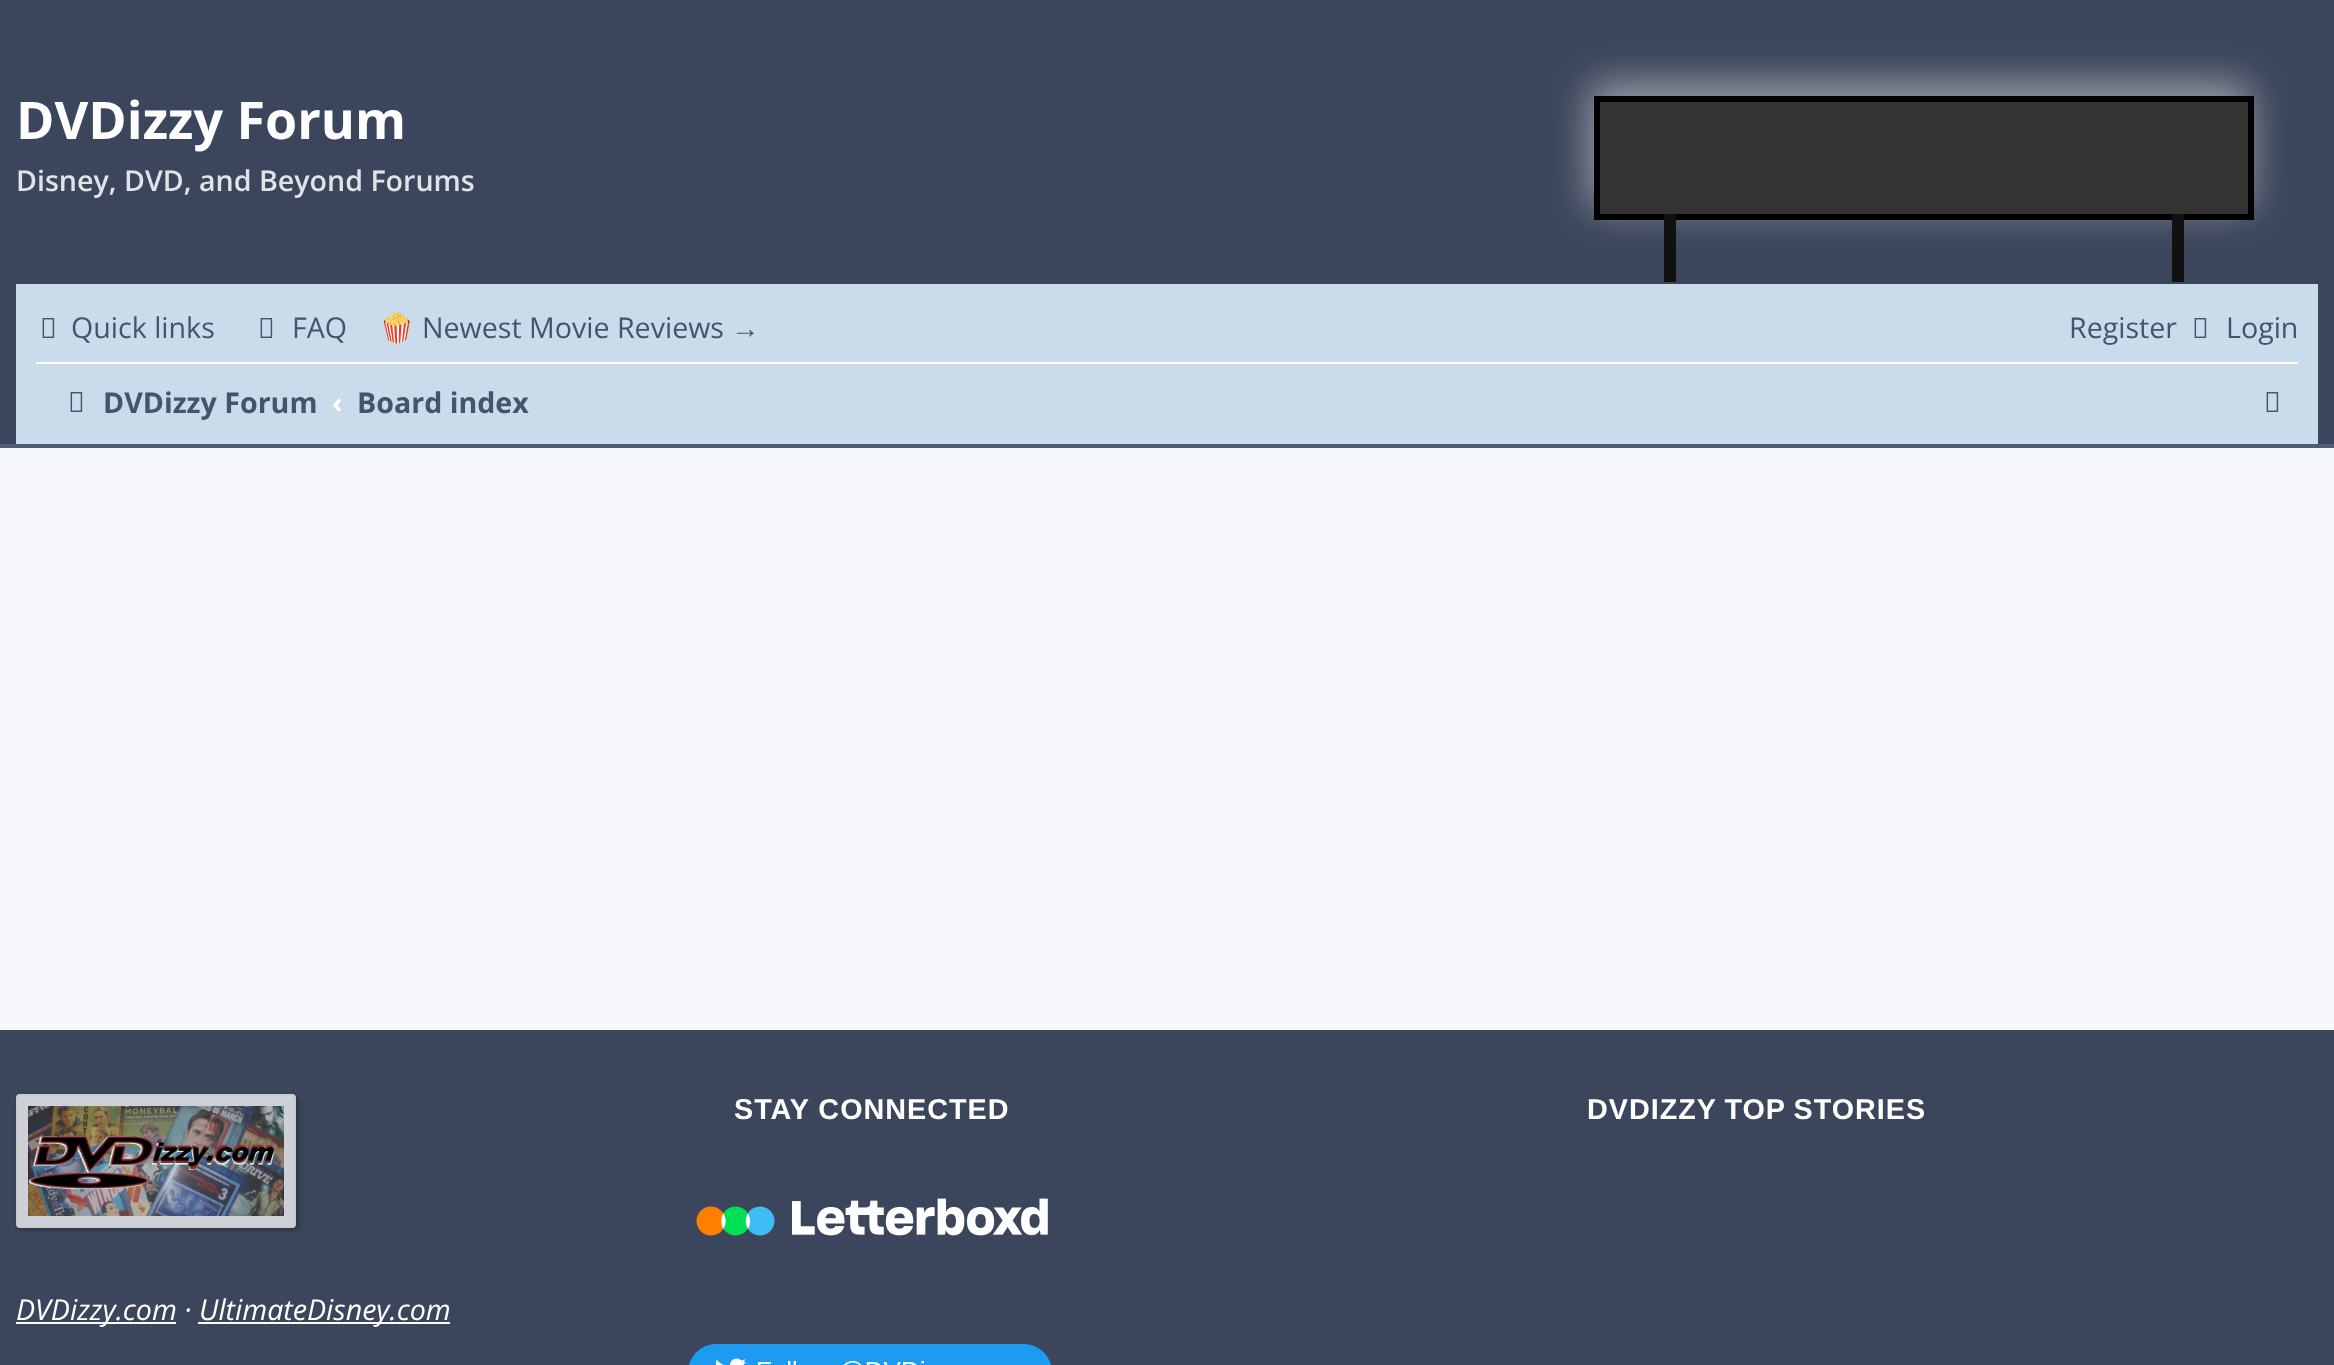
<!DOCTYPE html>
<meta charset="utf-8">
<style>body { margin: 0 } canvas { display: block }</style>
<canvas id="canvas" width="2334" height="1365"></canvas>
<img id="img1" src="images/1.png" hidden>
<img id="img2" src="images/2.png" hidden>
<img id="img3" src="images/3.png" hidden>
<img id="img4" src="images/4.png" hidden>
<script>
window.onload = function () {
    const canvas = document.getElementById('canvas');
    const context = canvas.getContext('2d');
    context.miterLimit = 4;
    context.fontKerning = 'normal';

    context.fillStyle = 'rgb(245, 247, 250)';
    context.fillRect(0, 0, 2334, 1365);
    context.fillStyle = 'rgb(59, 69, 91)';
    context.fillRect(0, 0, 2334, 444);
    context.fillStyle = 'rgb(76, 93, 119)';
    context.fillRect(0, 444, 2334, 4);
    context.fillStyle = 'rgba(255, 255, 250, 0.5)';
    context.filter = 'blur(20px)';
    context.beginPath();
    context.rect(1590, 84, 660, 124);
    context.fill();
    context.filter = 'none';
    context.fillStyle = 'rgb(51, 51, 51)';
    context.beginPath();
    context.rect(1597, 99, 654, 118);
    context.fill();
    context.strokeStyle = 'rgb(0, 0, 0)';
    context.lineWidth = 6;
    context.stroke();
    context.fillStyle = 'rgb(17, 17, 17)';
    context.fillRect(1664, 214, 12, 68);
    context.fillRect(2172, 214, 12, 68);
    context.fillStyle = 'rgb(202, 220, 235)';
    context.fillRect(16, 284, 2302, 160);
    context.drawImage(document.getElementById('img1'), 42, 318, 13, 20);
    context.drawImage(document.getElementById('img1'), 260, 318, 13, 20);
    context.drawImage(document.getElementById('img1'), 2194, 318, 13, 20);
    context.fillStyle = 'rgb(255, 255, 255)';
    context.fillRect(36, 362, 2262, 2);
    context.drawImage(document.getElementById('img1'), 70, 392, 13, 20);
    context.drawImage(document.getElementById('img1'), 2266, 392, 13, 20);
    context.fillStyle = 'rgb(59, 69, 91)';
    context.fillRect(0, 1030, 2334, 335);
    context.drawImage(document.getElementById('img2'), 696, 1198, 352, 38);
    context.drawImage(document.getElementById('img3'), 689, 1344, 362, 21);
    context.save();
    context.beginPath();
    context.moveTo(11, 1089);
    context.lineTo(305, 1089);
    context.lineTo(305, 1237);
    context.lineTo(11, 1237);
    context.closePath();
    context.moveTo(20, 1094);
    context.lineTo(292, 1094);
    context.bezierCurveTo(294, 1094, 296, 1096, 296, 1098);
    context.lineTo(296, 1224);
    context.bezierCurveTo(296, 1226, 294, 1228, 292, 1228);
    context.lineTo(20, 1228);
    context.bezierCurveTo(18, 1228, 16, 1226, 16, 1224);
    context.lineTo(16, 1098);
    context.bezierCurveTo(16, 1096, 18, 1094, 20, 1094);
    context.closePath();
    context.clip('evenodd');
    context.fillStyle = 'rgba(0, 0, 0, 0.3)';
    context.filter = 'blur(2px)';
    context.beginPath();
    context.roundRect(18, 1096, 280, 134, 4);
    context.fill();
    context.filter = 'none';
    context.restore();
    context.fillStyle = 'rgba(255, 255, 255, 0.75)';
    context.beginPath();
    context.roundRect(17, 1095, 278, 132, 3);
    context.fill();
    context.strokeStyle = 'rgb(204, 204, 204)';
    context.lineWidth = 2;
    context.stroke();
    context.drawImage(document.getElementById('img4'), 28, 1106, 256, 110);
    context.fillStyle = 'rgb(255, 255, 255)';
    context.fillRect(16, 1322, 160, 2);
    context.fillRect(198, 1322, 252, 2);
    context.font = 'bold 52px Open Sans';
    context.fillText('DVDizzy Forum', 16, 139);
    context.font = '600 28.6px Open Sans';
    context.fillStyle = 'rgb(226, 227, 230)';
    context.fillText('Disney, DVD, and Beyond Forums', 16, 191);
    context.font = '28.6px Open Sans';
    context.fillStyle = 'rgb(70, 83, 110)';
    context.fillText('Quick links', 71, 338);
    context.fillText('FAQ', 292, 338);
    context.font = '28.6px Noto Color Emoji';
    context.fillText('🍿', 379, 338);
    context.font = '28.6px Open Sans';
    context.fillText('Newest Movie Reviews', 422, 338);
    context.font = '28.6px Liberation Sans';
    context.fillText('→', 731, 338);
    context.font = '28.6px Open Sans';
    context.fillText('Register', 2069, 338);
    context.fillText('Login', 2226, 338);
    context.font = 'bold 28.6px Open Sans';
    context.fillText('DVDizzy Forum', 103, 413);
    context.fillStyle = 'rgb(255, 255, 255)';
    context.fillText('‹', 332, 413);
    context.fillStyle = 'rgb(70, 83, 110)';
    context.fillText('Board index', 357, 413);
    context.letterSpacing = '1px';
    context.font = 'bold 28.75px Liberation Sans';
    context.fillStyle = 'rgb(255, 255, 255)';
    context.fillText('STAY CONNECTED', 734, 1119);
    context.wordSpacing = '-1px';
    context.fillText('DVDIZZY TOP STORIES️️', 1587, 1119);
    context.letterSpacing = '0px';
    context.wordSpacing = '0px';
    context.font = 'italic 28.6px Open Sans';
    context.fillText('DVDizzy.com ·', 16, 1320);
    context.fillText('UltimateDisney.com', 199, 1320);
};
</script>
